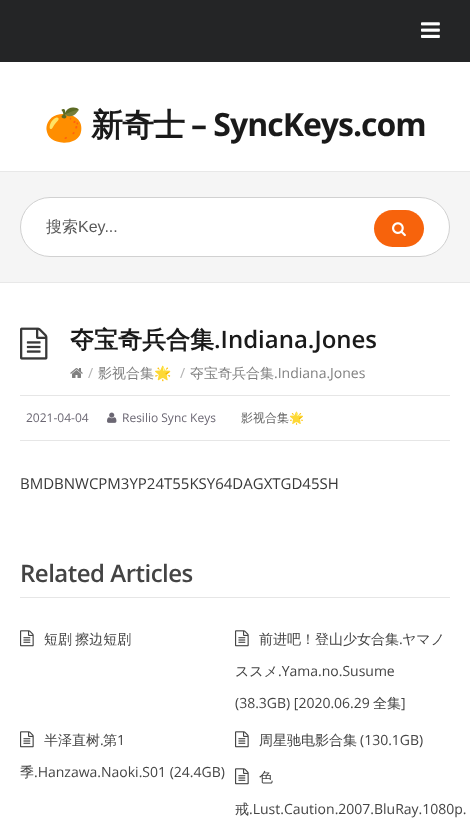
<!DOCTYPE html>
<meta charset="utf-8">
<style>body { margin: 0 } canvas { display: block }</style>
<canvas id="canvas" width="470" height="822"></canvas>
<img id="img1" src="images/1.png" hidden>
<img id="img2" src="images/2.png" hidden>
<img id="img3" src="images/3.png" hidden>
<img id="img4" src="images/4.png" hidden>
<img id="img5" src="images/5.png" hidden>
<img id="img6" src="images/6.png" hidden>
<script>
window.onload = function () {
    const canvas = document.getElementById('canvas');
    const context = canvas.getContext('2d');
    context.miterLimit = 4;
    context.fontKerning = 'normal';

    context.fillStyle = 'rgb(255, 255, 255)';
    context.fillRect(0, 0, 470, 822);
    context.fillStyle = 'rgb(36, 37, 38)';
    context.fillRect(0, 0, 470, 62);
    context.drawImage(document.getElementById('img1'), 421, 22, 19, 16);
    context.fillStyle = 'rgb(245, 245, 245)';
    context.fillRect(0, 172, 470, 110);
    context.fillStyle = 'rgb(232, 232, 232)';
    context.fillRect(0, 171, 470, 1);
    context.fillRect(0, 282, 470, 1);
    context.fillStyle = 'rgb(255, 255, 255)';
    context.beginPath();
    context.roundRect(20.5, 197.5, 429, 59, 29.5);
    context.fill();
    context.strokeStyle = 'rgb(209, 209, 209)';
    context.stroke();
    context.fillStyle = 'rgb(247, 99, 12)';
    context.beginPath();
    context.roundRect(374, 210, 50, 37, 18.5);
    context.fill();
    context.drawImage(document.getElementById('img2'), 392, 222, 14, 15);
    context.fillStyle = 'rgb(230, 230, 230)';
    context.fillRect(20, 395, 430, 1);
    context.drawImage(document.getElementById('img3'), 20, 327, 28, 33);
    context.drawImage(document.getElementById('img4'), 70, 368, 13, 10);
    context.fillRect(20, 440, 430, 1);
    context.drawImage(document.getElementById('img5'), 107, 412, 10, 11);
    context.fillRect(20, 597, 430, 1);
    context.drawImage(document.getElementById('img6'), 20, 630, 14, 17);
    context.drawImage(document.getElementById('img6'), 235, 630, 14, 17);
    context.drawImage(document.getElementById('img6'), 20, 731, 14, 17);
    context.drawImage(document.getElementById('img6'), 235, 731, 14, 17);
    context.drawImage(document.getElementById('img6'), 235, 768, 14, 17);
    context.letterSpacing = '-1px';
    context.font = 'bold 32px Noto Color Emoji';
    context.fillStyle = 'rgb(26, 26, 26)';
    context.fillText('🍊', 44, 136);
    context.font = 'bold 32px WenQuanYi Zen Hei';
    context.fillText('新奇士', 91, 136);
    context.font = 'bold 32px Open Sans';
    context.fillText('– SyncKeys.com', 191, 136);
    context.letterSpacing = '0px';
    context.font = '500 16px WenQuanYi Zen Hei';
    context.fillStyle = 'rgb(89, 89, 89)';
    context.fillText('搜索', 46, 232);
    context.font = '16px Liberation Sans';
    context.fillText('Key...', 78, 232);
    context.font = 'bold 24px WenQuanYi Zen Hei';
    context.fillStyle = 'rgb(26, 26, 26)';
    context.fillText('夺宝奇兵合集', 70, 348);
    context.font = '600 24px Open Sans';
    context.fillText('.Indiana.Jones', 214, 348);
    context.font = '14px Open Sans';
    context.fillStyle = 'rgb(179, 179, 179)';
    context.fillText('/', 88, 378);
    context.font = '500 14px WenQuanYi Zen Hei';
    context.fillStyle = 'rgb(128, 128, 128)';
    context.fillText('影视合集', 98, 378);
    context.font = '14px Noto Color Emoji';
    context.fillText('🌟', 154, 378);
    context.font = '14px Open Sans';
    context.fillStyle = 'rgb(179, 179, 179)';
    context.fillText('/', 180, 378);
    context.font = '500 14px WenQuanYi Zen Hei';
    context.fillStyle = 'rgb(128, 128, 128)';
    context.fillText('夺宝奇兵合集', 190, 378);
    context.font = '14px Open Sans';
    context.fillText('.Indiana.Jones', 274, 378);
    context.font = '12px Open Sans';
    context.fillStyle = 'rgb(107, 103, 115)';
    context.fillText('2021-04-04', 26, 422);
    context.fillText('Resilio Sync Keys', 122, 422);
    context.font = '500 12px WenQuanYi Zen Hei';
    context.fillStyle = 'rgb(102, 102, 102)';
    context.fillText('影视合集', 241, 422);
    context.font = '12px Noto Color Emoji';
    context.fillText('🌟', 289, 422);
    context.font = '15px Open Sans';
    context.fillStyle = 'rgb(56, 56, 56)';
    context.fillText('BMDBNWCPM3YP24T55KSY64DAGXTGD45SH', 20, 489);
    context.letterSpacing = '-0.5px';
    context.font = '600 24px Open Sans';
    context.fillStyle = 'rgb(68, 68, 68)';
    context.fillText('Related Articles', 20, 582);
    context.letterSpacing = '0px';
    context.wordSpacing = '-1px';
    context.font = '500 14px WenQuanYi Zen Hei';
    context.fillText('短剧 擦边短剧', 44, 644);
    context.wordSpacing = '0px';
    context.fillText('前进吧！登山少女合集', 259, 644);
    context.font = '14px Open Sans';
    context.fillText('.', 399, 644);
    context.font = '500 14px WenQuanYi Zen Hei';
    context.fillText('ヤマノ', 402, 644);
    context.fillText('ススメ', 235, 676);
    context.font = '14px Open Sans';
    context.fillText('.Yama.no.Susume', 278, 676);
    context.fillText('(38.3GB) [2020.06.29', 235, 708);
    context.font = '500 14px WenQuanYi Zen Hei';
    context.fillText('全集', 373, 708);
    context.font = '14px Open Sans';
    context.fillText(']', 401, 708);
    context.font = '500 14px WenQuanYi Zen Hei';
    context.fillText('半泽直树', 44, 745);
    context.font = '14px Open Sans';
    context.fillText('.', 100, 745);
    context.font = '500 14px WenQuanYi Zen Hei';
    context.fillText('第', 103, 745);
    context.font = '14px Open Sans';
    context.fillText('1', 117, 745);
    context.font = '500 14px WenQuanYi Zen Hei';
    context.fillText('季', 20, 777);
    context.font = '14px Open Sans';
    context.fillText('.Hanzawa.Naoki.S01 (24.4GB)', 34, 777);
    context.font = '500 14px WenQuanYi Zen Hei';
    context.fillText('周星驰电影合集', 259, 745);
    context.font = '14px Open Sans';
    context.fillText('(130.1GB)', 360, 745);
    context.font = '500 14px WenQuanYi Zen Hei';
    context.fillText('色', 259, 782);
    context.fillText('戒', 235, 814);
    context.font = '14px Open Sans';
    context.fillText('.Lust.Caution.2007.BluRay.1080p.', 249, 814);
};
</script>
